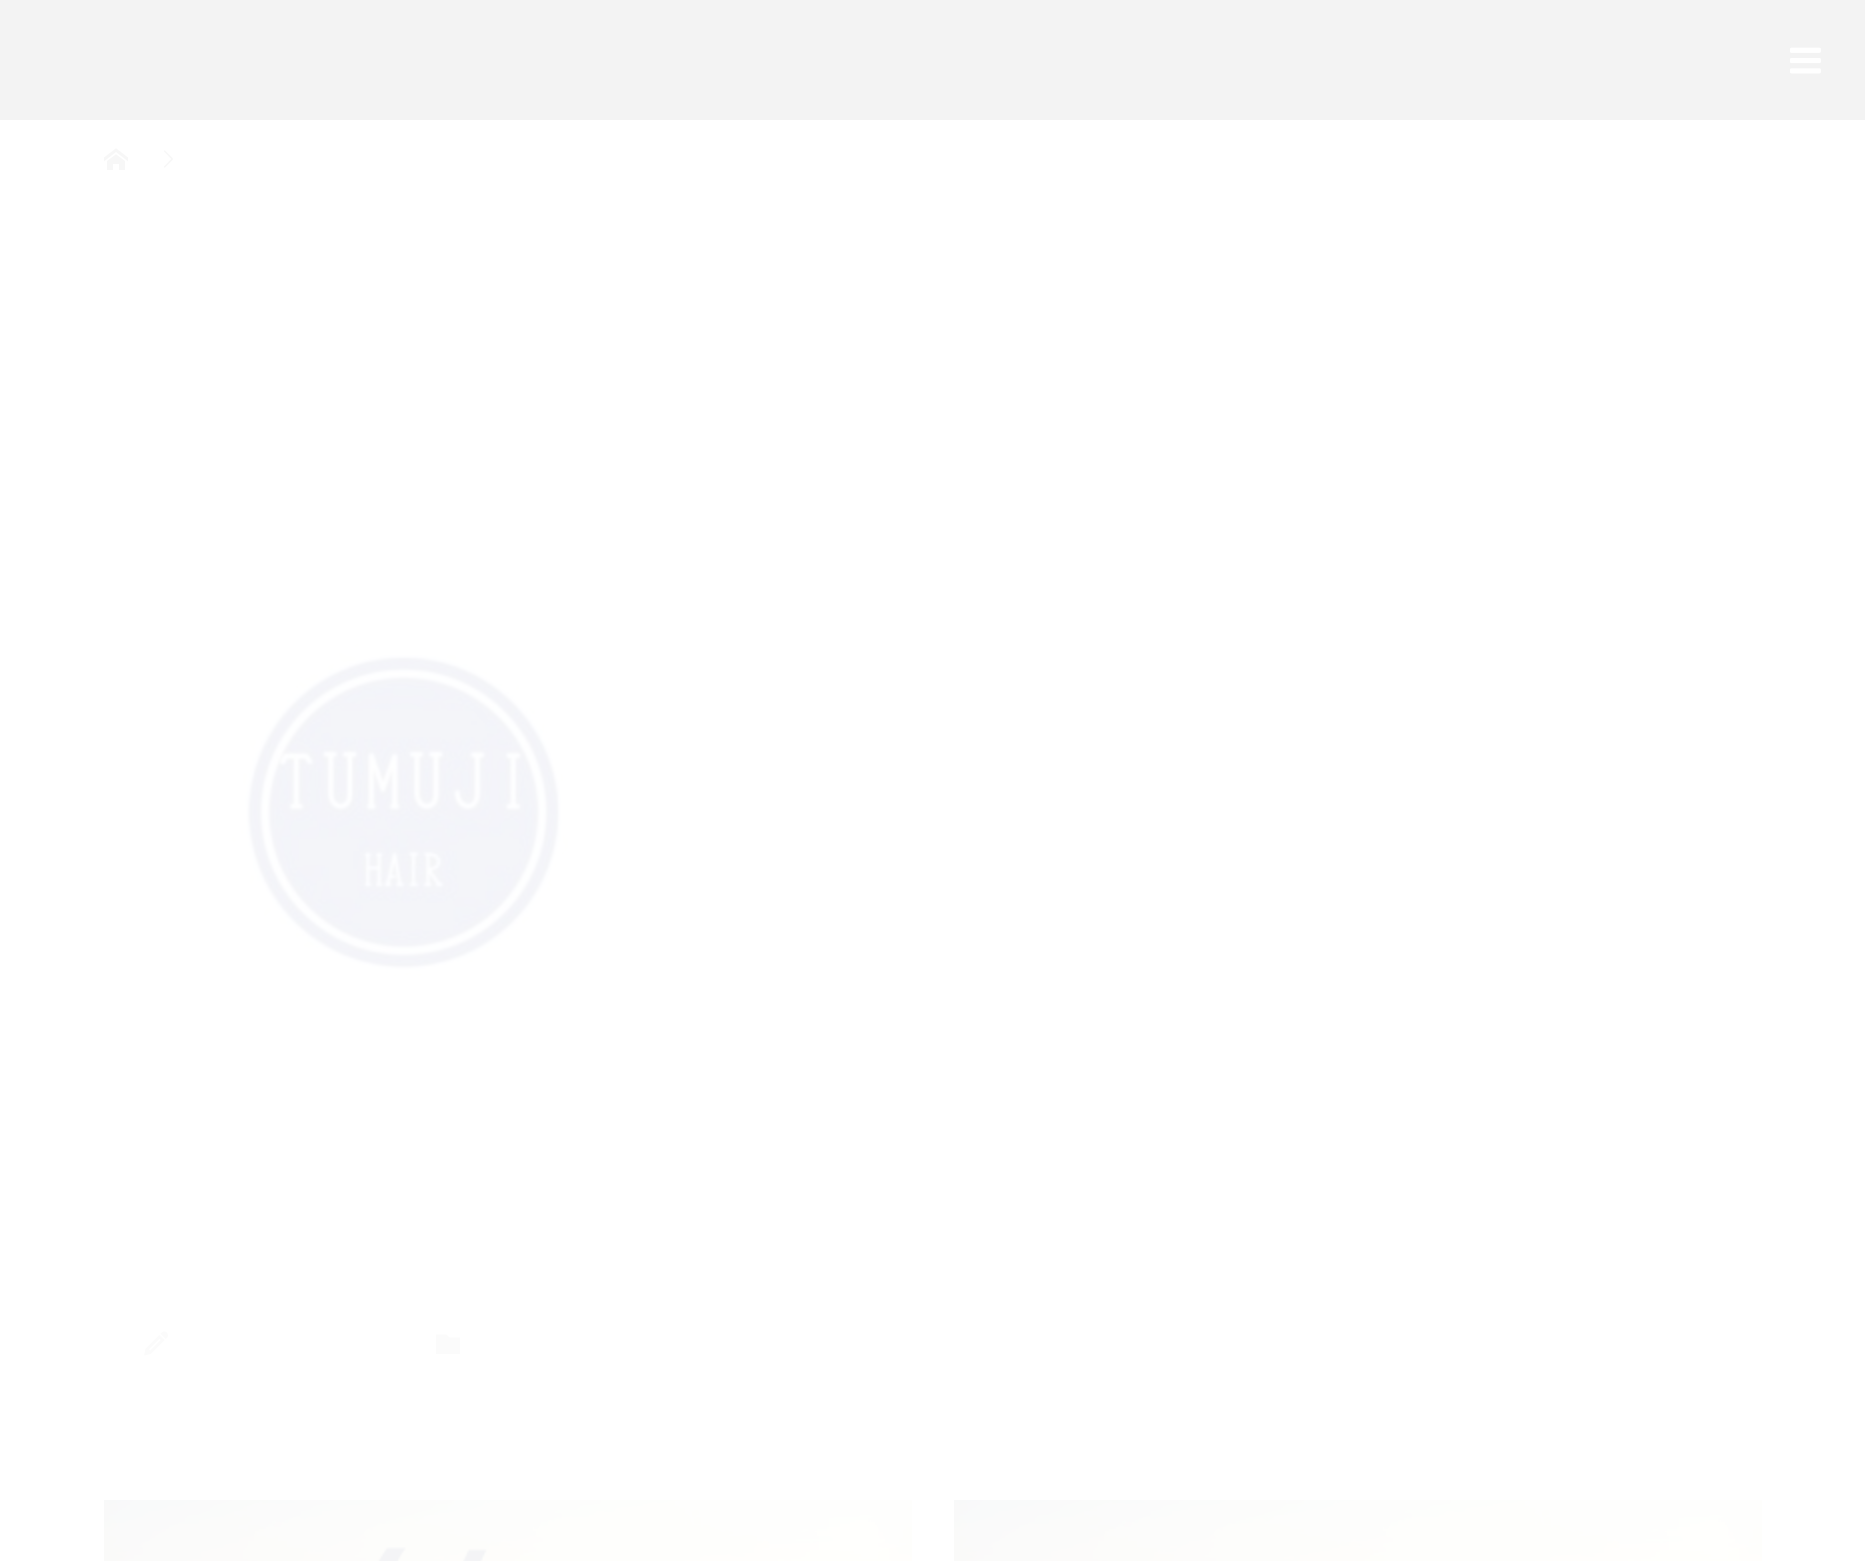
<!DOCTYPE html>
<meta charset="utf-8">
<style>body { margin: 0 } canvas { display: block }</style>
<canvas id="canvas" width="1865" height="1561"></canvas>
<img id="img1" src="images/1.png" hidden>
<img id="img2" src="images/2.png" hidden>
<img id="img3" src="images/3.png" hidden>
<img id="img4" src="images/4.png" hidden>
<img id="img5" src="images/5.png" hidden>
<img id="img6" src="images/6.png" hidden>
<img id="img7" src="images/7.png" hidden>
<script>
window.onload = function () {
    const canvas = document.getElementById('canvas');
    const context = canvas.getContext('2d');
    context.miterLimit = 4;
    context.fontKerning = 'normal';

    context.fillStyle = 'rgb(255, 255, 255)';
    context.fillRect(0, 0, 1865, 1561);
    context.fillStyle = 'rgb(243, 243, 243)';
    context.fillRect(0, 0, 1865, 120);
    context.drawImage(document.getElementById('img1'), 1790, 47, 31, 27);
    context.drawImage(document.getElementById('img2'), 104, 148, 24, 22);
    context.drawImage(document.getElementById('img3'), 164, 150, 9, 18);
    context.drawImage(document.getElementById('img4'), 231, 643, 353, 348);
    context.drawImage(document.getElementById('img5'), 144, 1331, 24, 25);
    context.fillStyle = 'rgb(251, 251, 251)';
    context.beginPath();
    context.moveTo(446.5, 1334.5);
    context.lineTo(449.5, 1337.5);
    context.lineTo(460, 1337.5);
    context.lineTo(460, 1354);
    context.lineTo(436, 1354);
    context.lineTo(436, 1334.5);
    context.closePath();
    context.fill();
    context.drawImage(document.getElementById('img6'), 104, 1500, 808, 61);
    context.drawImage(document.getElementById('img7'), 954, 1500, 808, 61);
};
</script>
